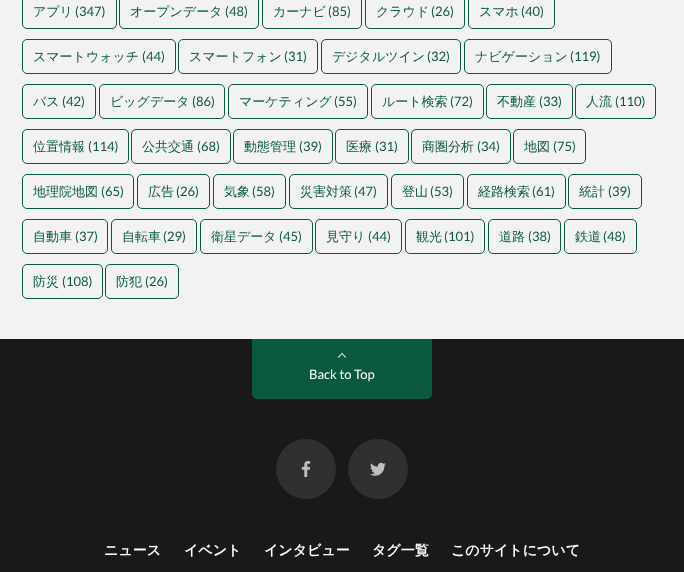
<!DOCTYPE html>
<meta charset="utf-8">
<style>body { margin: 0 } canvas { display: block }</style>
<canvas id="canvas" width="684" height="572"></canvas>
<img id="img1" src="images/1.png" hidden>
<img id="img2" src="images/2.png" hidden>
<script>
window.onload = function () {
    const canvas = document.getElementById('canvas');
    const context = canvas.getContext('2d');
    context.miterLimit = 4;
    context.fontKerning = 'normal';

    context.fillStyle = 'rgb(242, 242, 242)';
    context.fillRect(0, 0, 684, 572);
    context.beginPath();
    context.roundRect(22.5, -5.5, 94, 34, 4.5);
    context.strokeStyle = 'rgb(11, 89, 60)';
    context.stroke();
    context.beginPath();
    context.roundRect(119.5, -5.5, 139, 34, 4.5);
    context.stroke();
    context.beginPath();
    context.roundRect(262.5, -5.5, 99, 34, 4.5);
    context.stroke();
    context.beginPath();
    context.roundRect(365.5, -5.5, 99, 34, 4.5);
    context.stroke();
    context.beginPath();
    context.roundRect(468.5, -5.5, 86, 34, 4.5);
    context.stroke();
    context.beginPath();
    context.roundRect(22.5, 39.5, 153, 34, 4.5);
    context.stroke();
    context.beginPath();
    context.roundRect(178.5, 39.5, 139, 34, 4.5);
    context.stroke();
    context.beginPath();
    context.roundRect(321.5, 39.5, 139, 34, 4.5);
    context.stroke();
    context.beginPath();
    context.roundRect(464.5, 39.5, 147, 34, 4.5);
    context.stroke();
    context.beginPath();
    context.roundRect(22.5, 84.5, 73, 34, 4.5);
    context.stroke();
    context.beginPath();
    context.roundRect(99.5, 84.5, 125, 34, 4.5);
    context.stroke();
    context.beginPath();
    context.roundRect(228.5, 84.5, 139, 34, 4.5);
    context.stroke();
    context.beginPath();
    context.roundRect(371.5, 84.5, 112, 34, 4.5);
    context.stroke();
    context.beginPath();
    context.roundRect(486.5, 84.5, 86, 34, 4.5);
    context.stroke();
    context.beginPath();
    context.roundRect(575.5, 84.5, 80, 34, 4.5);
    context.stroke();
    context.beginPath();
    context.roundRect(22.5, 129.5, 106, 34, 4.5);
    context.stroke();
    context.beginPath();
    context.roundRect(131.5, 129.5, 99, 34, 4.5);
    context.stroke();
    context.beginPath();
    context.roundRect(233.5, 129.5, 99, 34, 4.5);
    context.stroke();
    context.beginPath();
    context.roundRect(335.5, 129.5, 73, 34, 4.5);
    context.stroke();
    context.beginPath();
    context.roundRect(411.5, 129.5, 99, 34, 4.5);
    context.stroke();
    context.beginPath();
    context.roundRect(513.5, 129.5, 72, 34, 4.5);
    context.stroke();
    context.beginPath();
    context.roundRect(22.5, 174.5, 111, 34, 4.5);
    context.stroke();
    context.beginPath();
    context.roundRect(137.5, 174.5, 72, 34, 4.5);
    context.stroke();
    context.beginPath();
    context.roundRect(213.5, 174.5, 72, 34, 4.5);
    context.stroke();
    context.beginPath();
    context.roundRect(289.5, 174.5, 98, 34, 4.5);
    context.stroke();
    context.beginPath();
    context.roundRect(391.5, 174.5, 72, 34, 4.5);
    context.stroke();
    context.beginPath();
    context.roundRect(467.5, 174.5, 98, 34, 4.5);
    context.stroke();
    context.beginPath();
    context.roundRect(568.5, 174.5, 73, 34, 4.5);
    context.stroke();
    context.beginPath();
    context.roundRect(22.5, 219.5, 85, 34, 4.5);
    context.stroke();
    context.beginPath();
    context.roundRect(111.5, 219.5, 85, 34, 4.5);
    context.stroke();
    context.beginPath();
    context.roundRect(200.5, 219.5, 112, 34, 4.5);
    context.stroke();
    context.beginPath();
    context.roundRect(315.5, 219.5, 86, 34, 4.5);
    context.stroke();
    context.beginPath();
    context.roundRect(405.5, 219.5, 79, 34, 4.5);
    context.stroke();
    context.beginPath();
    context.roundRect(488.5, 219.5, 72, 34, 4.5);
    context.stroke();
    context.beginPath();
    context.roundRect(564.5, 219.5, 72, 34, 4.5);
    context.stroke();
    context.beginPath();
    context.roundRect(22.5, 264.5, 80, 34, 4.5);
    context.stroke();
    context.beginPath();
    context.roundRect(105.5, 264.5, 73, 34, 4.5);
    context.stroke();
    context.fillStyle = 'rgb(25, 25, 25)';
    context.fillRect(0, 339, 684, 233);
    context.fillStyle = 'rgb(11, 89, 60)';
    context.beginPath();
    context.roundRect(252, 339, 180, 60, [0, 0, 5, 5]);
    context.fill();
    context.fillStyle = 'rgb(255, 255, 255)';
    context.beginPath();
    context.moveTo(342, 353);
    context.lineTo(346, 357);
    context.lineTo(345.5, 358);
    context.lineTo(341.5, 353.5);
    context.closePath();
    context.fill();
    context.beginPath();
    context.moveTo(342, 353);
    context.lineTo(342.5, 353.5);
    context.lineTo(338.5, 358);
    context.lineTo(338, 357);
    context.closePath();
    context.fill();
    context.fillStyle = 'rgb(48, 48, 48)';
    context.beginPath();
    context.arc(306, 469, 30, 0, 2 * Math.PI);
    context.fill();
    context.drawImage(document.getElementById('img1'), 301, 461, 10, 16);
    context.beginPath();
    context.arc(378, 469, 30, 0, 2 * Math.PI);
    context.fill();
    context.drawImage(document.getElementById('img2'), 370, 462, 16, 14);
    context.font = '500 13px WenQuanYi Zen Hei';
    context.fillStyle = 'rgb(11, 89, 60)';
    context.fillText('アプリ', 33, 16);
    context.font = '13px Lato';
    context.fillText('(347)', 75, 16);
    context.font = '500 13px WenQuanYi Zen Hei';
    context.fillText('オープンデータ', 130, 16);
    context.font = '13px Lato';
    context.fillText('(48)', 225, 16);
    context.font = '500 13px WenQuanYi Zen Hei';
    context.fillText('カーナビ', 273, 16);
    context.font = '13px Lato';
    context.fillText('(85)', 328, 16);
    context.font = '500 13px WenQuanYi Zen Hei';
    context.fillText('クラウド', 376, 16);
    context.font = '13px Lato';
    context.fillText('(26)', 431, 16);
    context.font = '500 13px WenQuanYi Zen Hei';
    context.fillText('スマホ', 479, 16);
    context.font = '13px Lato';
    context.fillText('(40)', 521, 16);
    context.font = '500 13px WenQuanYi Zen Hei';
    context.fillText('スマートウォッチ', 33, 61);
    context.font = '13px Lato';
    context.fillText('(44)', 142, 61);
    context.font = '500 13px WenQuanYi Zen Hei';
    context.fillText('スマートフォン', 189, 61);
    context.font = '13px Lato';
    context.fillText('(31)', 284, 61);
    context.font = '500 13px WenQuanYi Zen Hei';
    context.fillText('デジタルツイン', 332, 61);
    context.font = '13px Lato';
    context.fillText('(32)', 427, 61);
    context.font = '500 13px WenQuanYi Zen Hei';
    context.fillText('ナビゲーション', 475, 61);
    context.font = '13px Lato';
    context.fillText('(119)', 570, 61);
    context.font = '500 13px WenQuanYi Zen Hei';
    context.fillText('バス', 33, 106);
    context.font = '13px Lato';
    context.fillText('(42)', 62, 106);
    context.font = '500 13px WenQuanYi Zen Hei';
    context.fillText('ビッグデータ', 110, 106);
    context.font = '13px Lato';
    context.fillText('(86)', 192, 106);
    context.font = '500 13px WenQuanYi Zen Hei';
    context.fillText('マーケティング', 239, 106);
    context.font = '13px Lato';
    context.fillText('(55)', 334, 106);
    context.font = '500 13px WenQuanYi Zen Hei';
    context.fillText('ルート検索', 382, 106);
    context.font = '13px Lato';
    context.fillText('(72)', 450, 106);
    context.font = '500 13px WenQuanYi Zen Hei';
    context.fillText('不動産', 497, 106);
    context.font = '13px Lato';
    context.fillText('(33)', 539, 106);
    context.font = '500 13px WenQuanYi Zen Hei';
    context.fillText('人流', 586, 106);
    context.font = '13px Lato';
    context.fillText('(110)', 615, 106);
    context.font = '500 13px WenQuanYi Zen Hei';
    context.fillText('位置情報', 33, 151);
    context.font = '13px Lato';
    context.fillText('(114)', 88, 151);
    context.font = '500 13px WenQuanYi Zen Hei';
    context.fillText('公共交通', 142, 151);
    context.font = '13px Lato';
    context.fillText('(68)', 197, 151);
    context.font = '500 13px WenQuanYi Zen Hei';
    context.fillText('動態管理', 244, 151);
    context.font = '13px Lato';
    context.fillText('(39)', 299, 151);
    context.font = '500 13px WenQuanYi Zen Hei';
    context.fillText('医療', 346, 151);
    context.font = '13px Lato';
    context.fillText('(31)', 375, 151);
    context.font = '500 13px WenQuanYi Zen Hei';
    context.fillText('商圏分析', 422, 151);
    context.font = '13px Lato';
    context.fillText('(34)', 477, 151);
    context.font = '500 13px WenQuanYi Zen Hei';
    context.fillText('地図', 524, 151);
    context.font = '13px Lato';
    context.fillText('(75)', 553, 151);
    context.font = '500 13px WenQuanYi Zen Hei';
    context.fillText('地理院地図', 33, 196);
    context.font = '13px Lato';
    context.fillText('(65)', 101, 196);
    context.font = '500 13px WenQuanYi Zen Hei';
    context.fillText('広告', 148, 196);
    context.font = '13px Lato';
    context.fillText('(26)', 176, 196);
    context.font = '500 13px WenQuanYi Zen Hei';
    context.fillText('気象', 224, 196);
    context.font = '13px Lato';
    context.fillText('(58)', 252, 196);
    context.font = '500 13px WenQuanYi Zen Hei';
    context.fillText('災害対策', 300, 196);
    context.font = '13px Lato';
    context.fillText('(47)', 354, 196);
    context.font = '500 13px WenQuanYi Zen Hei';
    context.fillText('登山', 402, 196);
    context.font = '13px Lato';
    context.fillText('(53)', 430, 196);
    context.font = '500 13px WenQuanYi Zen Hei';
    context.fillText('経路検索', 478, 196);
    context.font = '13px Lato';
    context.fillText('(61)', 532, 196);
    context.font = '500 13px WenQuanYi Zen Hei';
    context.fillText('統計', 579, 196);
    context.font = '13px Lato';
    context.fillText('(39)', 608, 196);
    context.font = '500 13px WenQuanYi Zen Hei';
    context.fillText('自動車', 33, 241);
    context.font = '13px Lato';
    context.fillText('(37)', 75, 241);
    context.font = '500 13px WenQuanYi Zen Hei';
    context.fillText('自転車', 122, 241);
    context.font = '13px Lato';
    context.fillText('(29)', 163, 241);
    context.font = '500 13px WenQuanYi Zen Hei';
    context.fillText('衛星データ', 211, 241);
    context.font = '13px Lato';
    context.fillText('(45)', 279, 241);
    context.font = '500 13px WenQuanYi Zen Hei';
    context.fillText('見守り', 326, 241);
    context.font = '13px Lato';
    context.fillText('(44)', 368, 241);
    context.font = '500 13px WenQuanYi Zen Hei';
    context.fillText('観光', 416, 241);
    context.font = '13px Lato';
    context.fillText('(101)', 444, 241);
    context.font = '500 13px WenQuanYi Zen Hei';
    context.fillText('道路', 499, 241);
    context.font = '13px Lato';
    context.fillText('(38)', 528, 241);
    context.font = '500 13px WenQuanYi Zen Hei';
    context.fillText('鉄道', 575, 241);
    context.font = '13px Lato';
    context.fillText('(48)', 603, 241);
    context.font = '500 13px WenQuanYi Zen Hei';
    context.fillText('防災', 33, 286);
    context.font = '13px Lato';
    context.fillText('(108)', 62, 286);
    context.font = '500 13px WenQuanYi Zen Hei';
    context.fillText('防犯', 116, 286);
    context.font = '13px Lato';
    context.fillText('(26)', 145, 286);
    context.fillStyle = 'rgb(255, 255, 255)';
    context.fillText('Back to Top', 309, 379);
    context.font = 'bold 14px WenQuanYi Zen Hei';
    context.fillText('ニュース', 104, 555);
    context.fillText('イベント', 184, 555);
    context.fillText('インタビュー', 264, 555);
    context.fillText('タグ一覧', 372, 555);
    context.fillText('このサイトについて', 451, 555);
};
</script>
